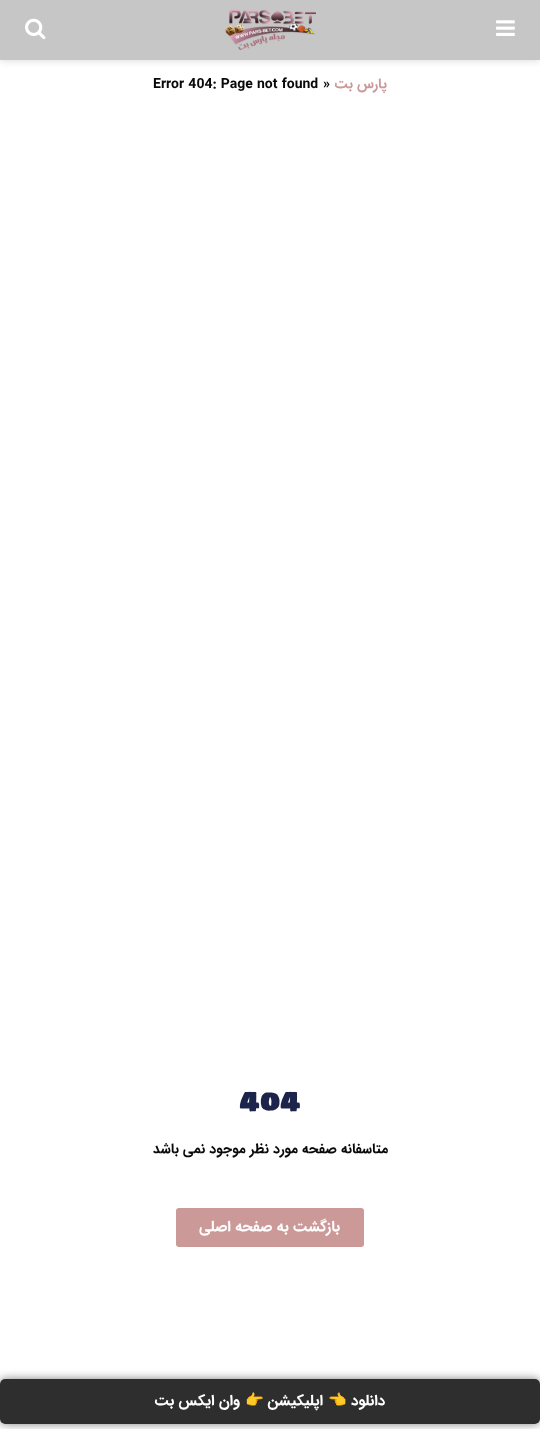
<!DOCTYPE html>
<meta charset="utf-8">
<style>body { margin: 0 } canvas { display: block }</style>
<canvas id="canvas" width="540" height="1429"></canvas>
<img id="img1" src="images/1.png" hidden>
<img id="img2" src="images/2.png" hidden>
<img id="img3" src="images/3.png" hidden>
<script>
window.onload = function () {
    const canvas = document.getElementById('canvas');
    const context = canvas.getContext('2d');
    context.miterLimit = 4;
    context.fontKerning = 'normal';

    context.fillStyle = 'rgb(255, 255, 255)';
    context.fillRect(0, 0, 540, 1429);
    context.fillStyle = 'rgba(0, 0, 0, 0.1)';
    context.filter = 'blur(3px)';
    context.beginPath();
    context.rect(0, 2, 540, 60);
    context.fill();
    context.filter = 'none';
    context.fillStyle = 'rgb(198, 198, 198)';
    context.fillRect(0, 0, 540, 60);
    context.drawImage(document.getElementById('img1'), 496, 20, 19, 16);
    context.drawImage(document.getElementById('img2'), 225, 10, 91, 40);
    context.drawImage(document.getElementById('img3'), 25, 18, 21, 22);
    context.fillStyle = 'rgb(204, 153, 153)';
    context.beginPath();
    context.roundRect(176, 1208, 188, 39, 3);
    context.fill();
    context.save();
    context.beginPath();
    context.moveTo(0, 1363);
    context.lineTo(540, 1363);
    context.lineTo(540, 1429);
    context.lineTo(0, 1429);
    context.closePath();
    context.moveTo(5, 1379);
    context.lineTo(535, 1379);
    context.bezierCurveTo(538, 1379, 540, 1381, 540, 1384);
    context.lineTo(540, 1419);
    context.bezierCurveTo(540, 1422, 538, 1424, 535, 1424);
    context.lineTo(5, 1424);
    context.bezierCurveTo(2, 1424, 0, 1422, 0, 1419);
    context.lineTo(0, 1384);
    context.bezierCurveTo(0, 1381, 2, 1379, 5, 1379);
    context.closePath();
    context.clip('evenodd');
    context.fillStyle = 'rgba(0, 0, 0, 0.5)';
    context.filter = 'blur(5px)';
    context.beginPath();
    context.roundRect(0, 1379, 540, 45, 5);
    context.fill();
    context.filter = 'none';
    context.restore();
    context.fillStyle = 'rgba(17, 17, 17, 0.88)';
    context.beginPath();
    context.roundRect(0, 1379, 540, 45, 5);
    context.fill();
    context.direction = 'rtl';
    context.font = 'bold 14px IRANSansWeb';
    context.fillStyle = 'rgb(204, 153, 153)';
    context.fillText('پارس بت', 387, 88);
    context.direction = 'ltr';
    context.fillStyle = 'rgb(10, 9, 9)';
    context.fillText('»', 323, 88);
    context.fillText('Error 404: Page not found', 153, 88);
    context.font = 'bold 28px Sigmar One';
    context.fillStyle = 'rgb(28, 36, 75)';
    context.fillText('404', 239, 1110);
    context.direction = 'rtl';
    context.font = 'bold 14px IRANSansWeb';
    context.fillStyle = 'rgb(10, 9, 9)';
    context.fillText('متاسفانه صفحه مورد نظر موجود نمی باشد', 388, 1153);
    context.font = 'bold 15px IRANSansWeb';
    context.fillStyle = 'rgb(255, 255, 255)';
    context.fillText('بازگشت به صفحه اصلی', 340, 1231);
    context.fillText('دانلود', 385, 1405);
    context.font = '15px Noto Color Emoji';
    context.fillText('👈', 347, 1405);
    context.font = 'bold 15px IRANSansWeb';
    context.fillText('اپلیکیشن', 323, 1405);
    context.font = '15px Noto Color Emoji';
    context.fillText('👉', 264, 1405);
    context.font = 'bold 15px IRANSansWeb';
    context.fillText('وان ایکس بت', 240, 1405);
};
</script>
